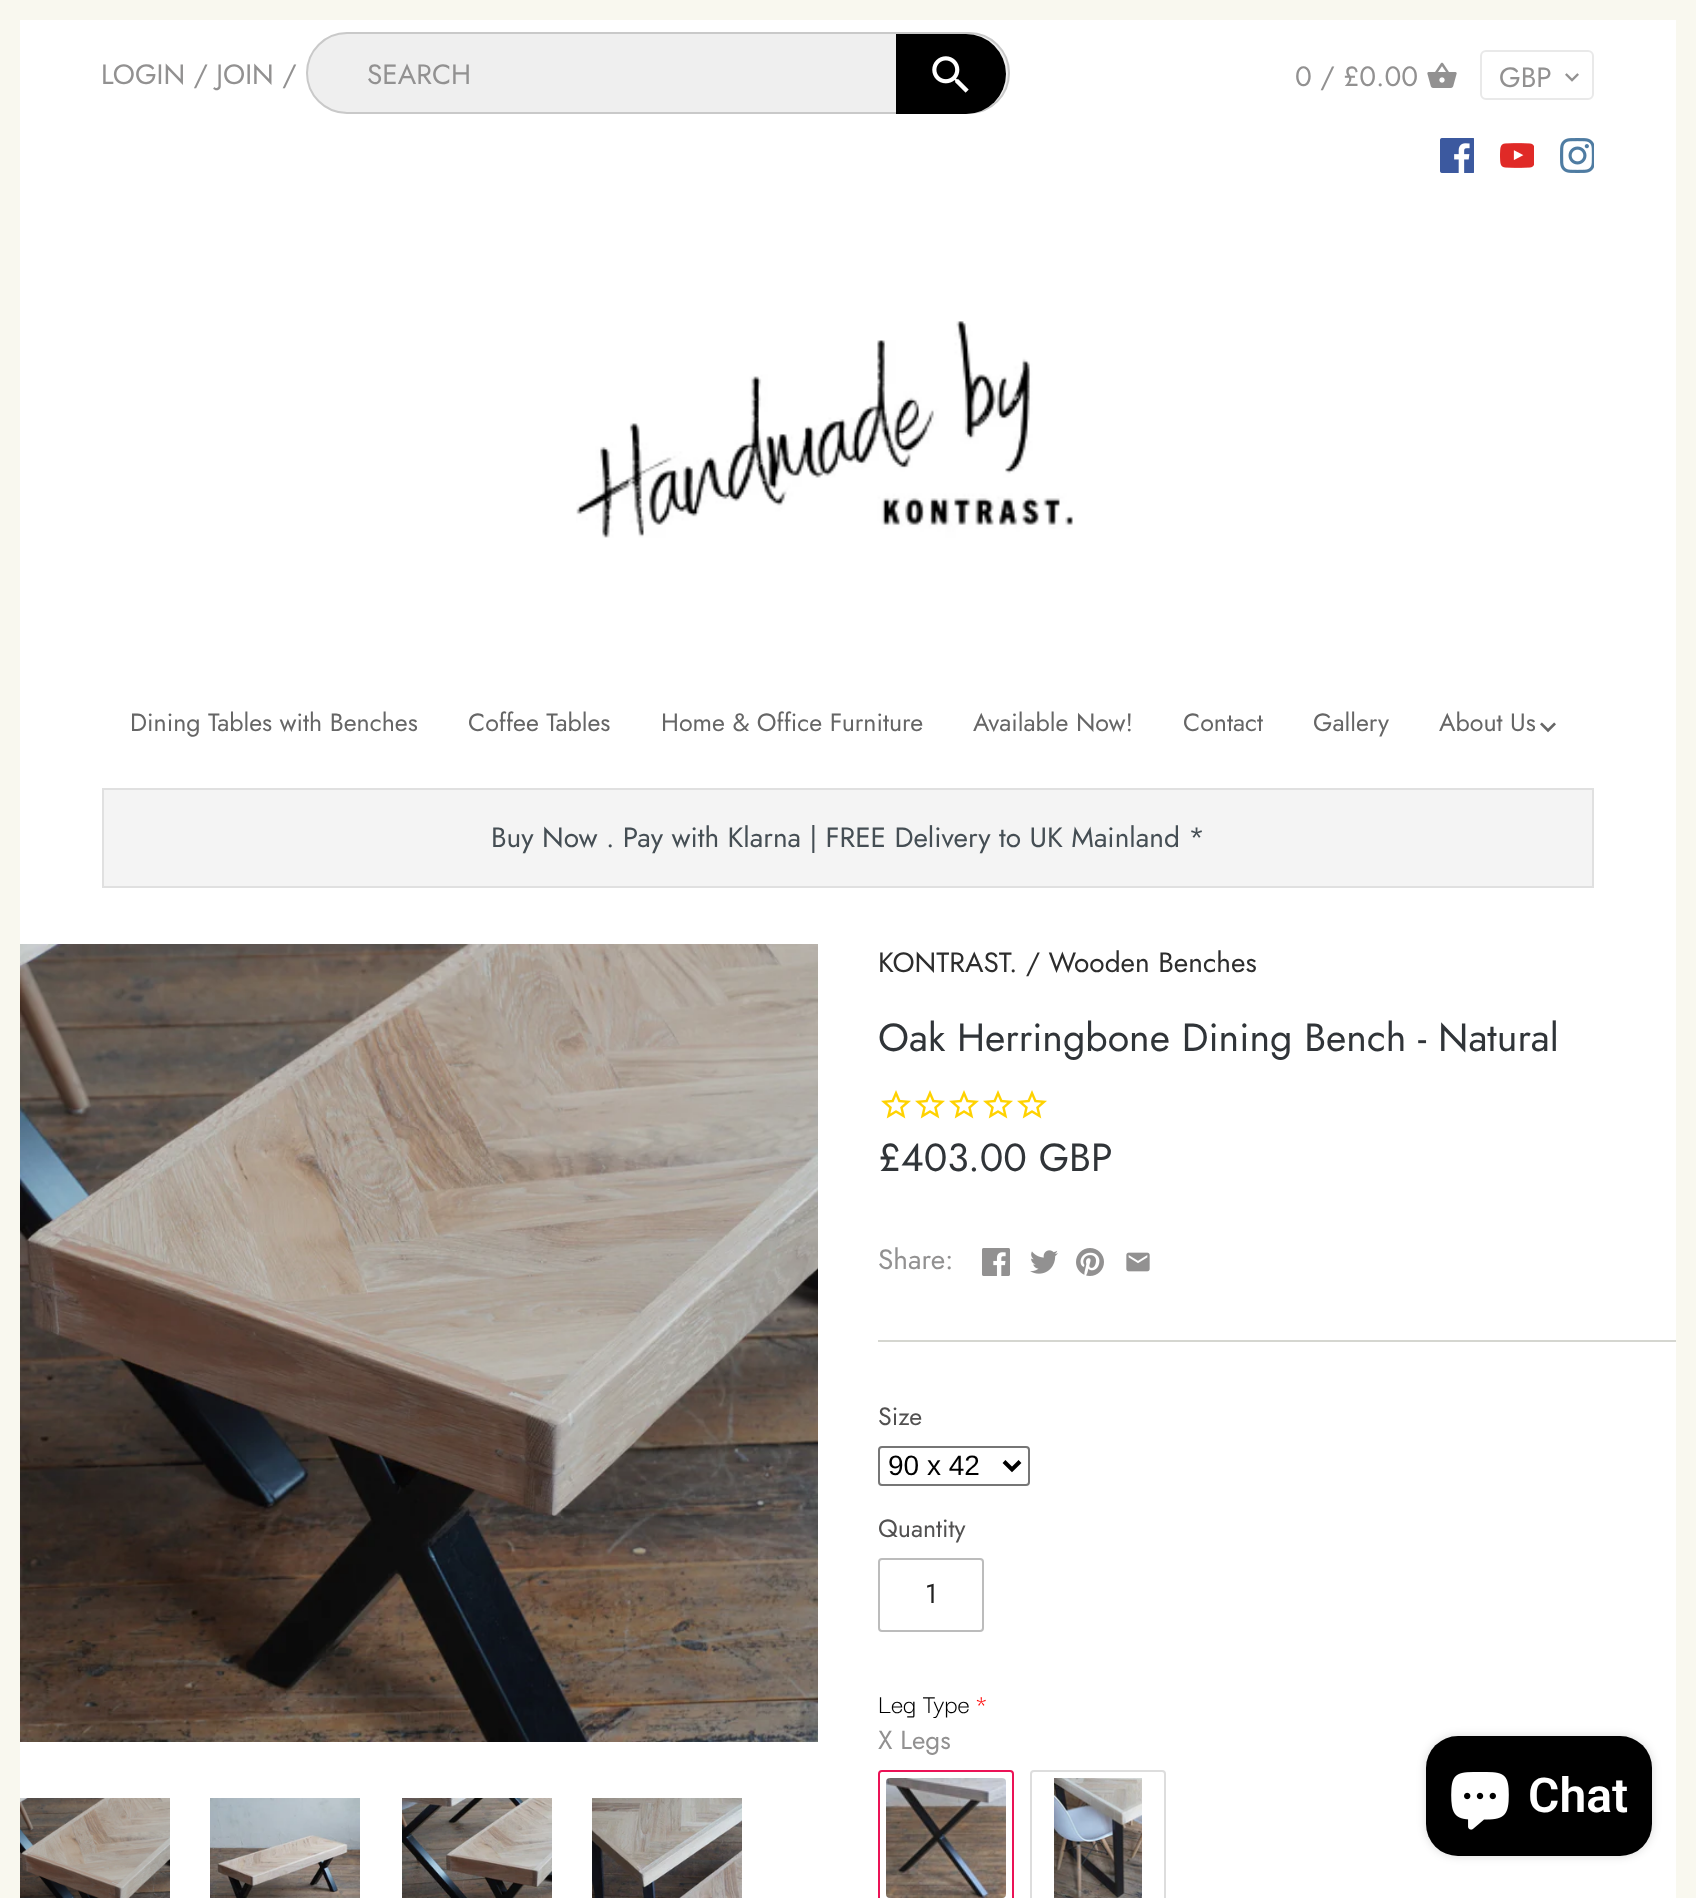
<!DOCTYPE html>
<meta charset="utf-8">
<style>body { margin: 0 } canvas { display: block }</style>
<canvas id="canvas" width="1696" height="1898"></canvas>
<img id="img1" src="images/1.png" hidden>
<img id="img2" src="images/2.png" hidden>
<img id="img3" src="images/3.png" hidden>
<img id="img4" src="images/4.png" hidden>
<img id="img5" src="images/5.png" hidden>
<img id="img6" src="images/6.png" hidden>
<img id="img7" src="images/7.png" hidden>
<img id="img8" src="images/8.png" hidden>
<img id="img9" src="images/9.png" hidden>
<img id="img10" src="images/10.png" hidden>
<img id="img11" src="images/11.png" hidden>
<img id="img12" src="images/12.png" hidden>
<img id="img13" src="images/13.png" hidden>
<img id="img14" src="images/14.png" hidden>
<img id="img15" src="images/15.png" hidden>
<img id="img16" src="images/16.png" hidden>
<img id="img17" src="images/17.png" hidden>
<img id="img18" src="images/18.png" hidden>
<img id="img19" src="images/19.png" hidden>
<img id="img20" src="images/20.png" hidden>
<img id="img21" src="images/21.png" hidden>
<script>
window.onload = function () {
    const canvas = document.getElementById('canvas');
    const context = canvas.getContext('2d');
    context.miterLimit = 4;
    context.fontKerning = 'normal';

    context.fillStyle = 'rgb(249, 248, 239)';
    context.fillRect(0, 0, 1696, 1898);
    context.fillStyle = 'rgb(255, 255, 255)';
    context.fillRect(20, 20, 1656, 1878);
    context.fillStyle = 'rgb(239, 239, 239)';
    context.beginPath();
    context.roundRect(306, 32, 704, 82, 41);
    context.fill();
    context.beginPath();
    context.roundRect(307, 33, 702, 80, 40);
    context.strokeStyle = 'rgba(50, 50, 50, 0.2)';
    context.lineWidth = 2;
    context.stroke();
    context.fillStyle = 'rgb(0, 0, 0)';
    context.beginPath();
    context.roundRect(896, 34, 110, 80, [0, 40, 40, 0]);
    context.fill();
    context.drawImage(document.getElementById('img1'), 932, 56, 37, 37);
    context.drawImage(document.getElementById('img2'), 1427, 62, 30, 26);
    context.beginPath();
    context.roundRect(1481, 51, 112, 48, 5);
    context.strokeStyle = 'rgb(233, 233, 233)';
    context.stroke();
    context.drawImage(document.getElementById('img3'), 1565, 73, 14, 9);
    context.drawImage(document.getElementById('img4'), 1440, 138, 34, 35);
    context.drawImage(document.getElementById('img5'), 1500, 143, 34, 25);
    context.drawImage(document.getElementById('img6'), 1560, 138, 34, 35);
    context.drawImage(document.getElementById('img7'), 576, 321, 497, 217);
    context.drawImage(document.getElementById('img8'), 1540, 722, 16, 11);
    context.fillStyle = 'rgb(244, 244, 244)';
    context.beginPath();
    context.rect(103, 789, 1490, 98);
    context.fill();
    context.strokeStyle = 'rgb(224, 224, 224)';
    context.stroke();
    context.drawImage(document.getElementById('img9'), 20, 944, 798, 798);
    context.drawImage(document.getElementById('img10'), 20, 1798, 150, 100);
    context.drawImage(document.getElementById('img11'), 210, 1798, 150, 100);
    context.drawImage(document.getElementById('img12'), 402, 1798, 150, 100);
    context.drawImage(document.getElementById('img13'), 592, 1798, 150, 100);
    context.fillStyle = 'rgb(213, 214, 208)';
    context.fillRect(878, 1340, 798, 2);
    context.drawImage(document.getElementById('img14'), 881, 1090, 30, 29);
    context.drawImage(document.getElementById('img14'), 915, 1090, 30, 29);
    context.drawImage(document.getElementById('img14'), 949, 1090, 30, 29);
    context.drawImage(document.getElementById('img14'), 983, 1090, 30, 29);
    context.drawImage(document.getElementById('img14'), 1017, 1090, 30, 29);
    context.drawImage(document.getElementById('img15'), 982, 1248, 28, 28);
    context.drawImage(document.getElementById('img16'), 1030, 1250, 28, 24);
    context.drawImage(document.getElementById('img17'), 1076, 1248, 28, 28);
    context.drawImage(document.getElementById('img18'), 1126, 1252, 24, 20);
    context.beginPath();
    context.roundRect(879, 1447, 150, 38, 3);
    context.strokeStyle = 'rgb(118, 118, 118)';
    context.stroke();
    context.beginPath();
    context.moveTo(1004, 1461.5);
    context.lineTo(1012, 1469.5);
    context.lineTo(1020, 1461.5);
    context.strokeStyle = 'rgb(0, 0, 0)';
    context.lineWidth = 4;
    context.stroke();
    context.beginPath();
    context.roundRect(879, 1559, 104, 72, 3);
    context.strokeStyle = 'rgb(188, 188, 188)';
    context.lineWidth = 2;
    context.stroke();
    context.beginPath();
    context.roundRect(879, 1771, 134, 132, 3);
    context.strokeStyle = 'rgb(235, 18, 86)';
    context.stroke();
    context.beginPath();
    context.roundRect(883, 1775, 126, 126, 1);
    context.strokeStyle = 'rgb(255, 255, 255)';
    context.lineWidth = 6;
    context.stroke();
    context.drawImage(document.getElementById('img19'), 886, 1778, 120, 120);
    context.beginPath();
    context.roundRect(1031, 1771, 134, 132, 3);
    context.strokeStyle = 'rgb(221, 221, 221)';
    context.lineWidth = 2;
    context.stroke();
    context.drawImage(document.getElementById('img20'), 1054, 1778, 88, 120);
    context.fillStyle = 'rgba(0, 0, 0, 0.15)';
    context.filter = 'blur(5px)';
    context.beginPath();
    context.roundRect(1426, 1736, 226, 120, 32);
    context.fill();
    context.filter = 'none';
    context.fillStyle = 'rgb(0, 0, 0)';
    context.beginPath();
    context.roundRect(1426, 1736, 226, 120, 32);
    context.fill();
    context.drawImage(document.getElementById('img21'), 1451, 1772, 58, 58);
    context.font = '28px Jost';
    context.fillStyle = 'rgb(146, 145, 145)';
    context.fillText('LOGIN / JOIN /', 101, 84);
    context.fillText('SEARCH', 367, 84);
    context.fillText('0 / £0.00', 1295, 86);
    context.fillText('GBP', 1499, 87);
    context.font = '25px Jost';
    context.fillStyle = 'rgb(102, 102, 102)';
    context.fillText('Dining Tables with Benches', 130, 731);
    context.fillText('Coffee Tables', 468, 731);
    context.fillText('Home & Office Furniture', 661, 731);
    context.fillText('Available Now!', 973, 731);
    context.fillText('Contact', 1183, 731);
    context.fillText('Gallery', 1313, 731);
    context.fillText('About Us', 1439, 731);
    context.font = '28px Jost';
    context.fillStyle = 'rgb(69, 78, 84)';
    context.fillText('Buy Now . Pay with Klarna | FREE Delivery to UK Mainland *', 491, 847);
    context.fillStyle = 'rgb(45, 45, 45)';
    context.fillText('KONTRAST. / Wooden Benches', 878, 972);
    context.font = '39.25px Jost';
    context.fillStyle = 'rgb(48, 52, 56)';
    context.fillText('Oak Herringbone Dining Bench - Natural', 878, 1051);
    context.fillText('£403.00 GBP', 878, 1171);
    context.font = '28px Jost';
    context.fillStyle = 'rgb(146, 145, 145)';
    context.fillText('Share:', 878, 1269);
    context.font = '25px Jost';
    context.fillStyle = 'rgb(82, 81, 81)';
    context.fillText('Size', 878, 1425);
    context.font = '28px Liberation Sans';
    context.fillStyle = 'rgb(0, 0, 0)';
    context.fillText('90 x 42', 888, 1475);
    context.font = '25px Jost';
    context.fillStyle = 'rgb(82, 81, 81)';
    context.fillText('Quantity', 878, 1537);
    context.font = '27px Jost';
    context.fillStyle = 'rgb(34, 34, 34)';
    context.fillText('1', 925, 1603);
    context.font = '300 28px Darker Grotesque';
    context.fillStyle = 'rgb(0, 0, 0)';
    context.fillText('Leg Type', 878, 1713);
    context.fillStyle = 'rgb(255, 0, 0)';
    context.fillText('*', 976, 1713);
    context.font = '26px Jost';
    context.fillStyle = 'rgb(146, 145, 145)';
    context.fillText('X Legs', 878, 1749);
    context.font = '600 48px Roboto';
    context.fillStyle = 'rgb(255, 255, 255)';
    context.fillText('Chat', 1528, 1812);
};
</script>
